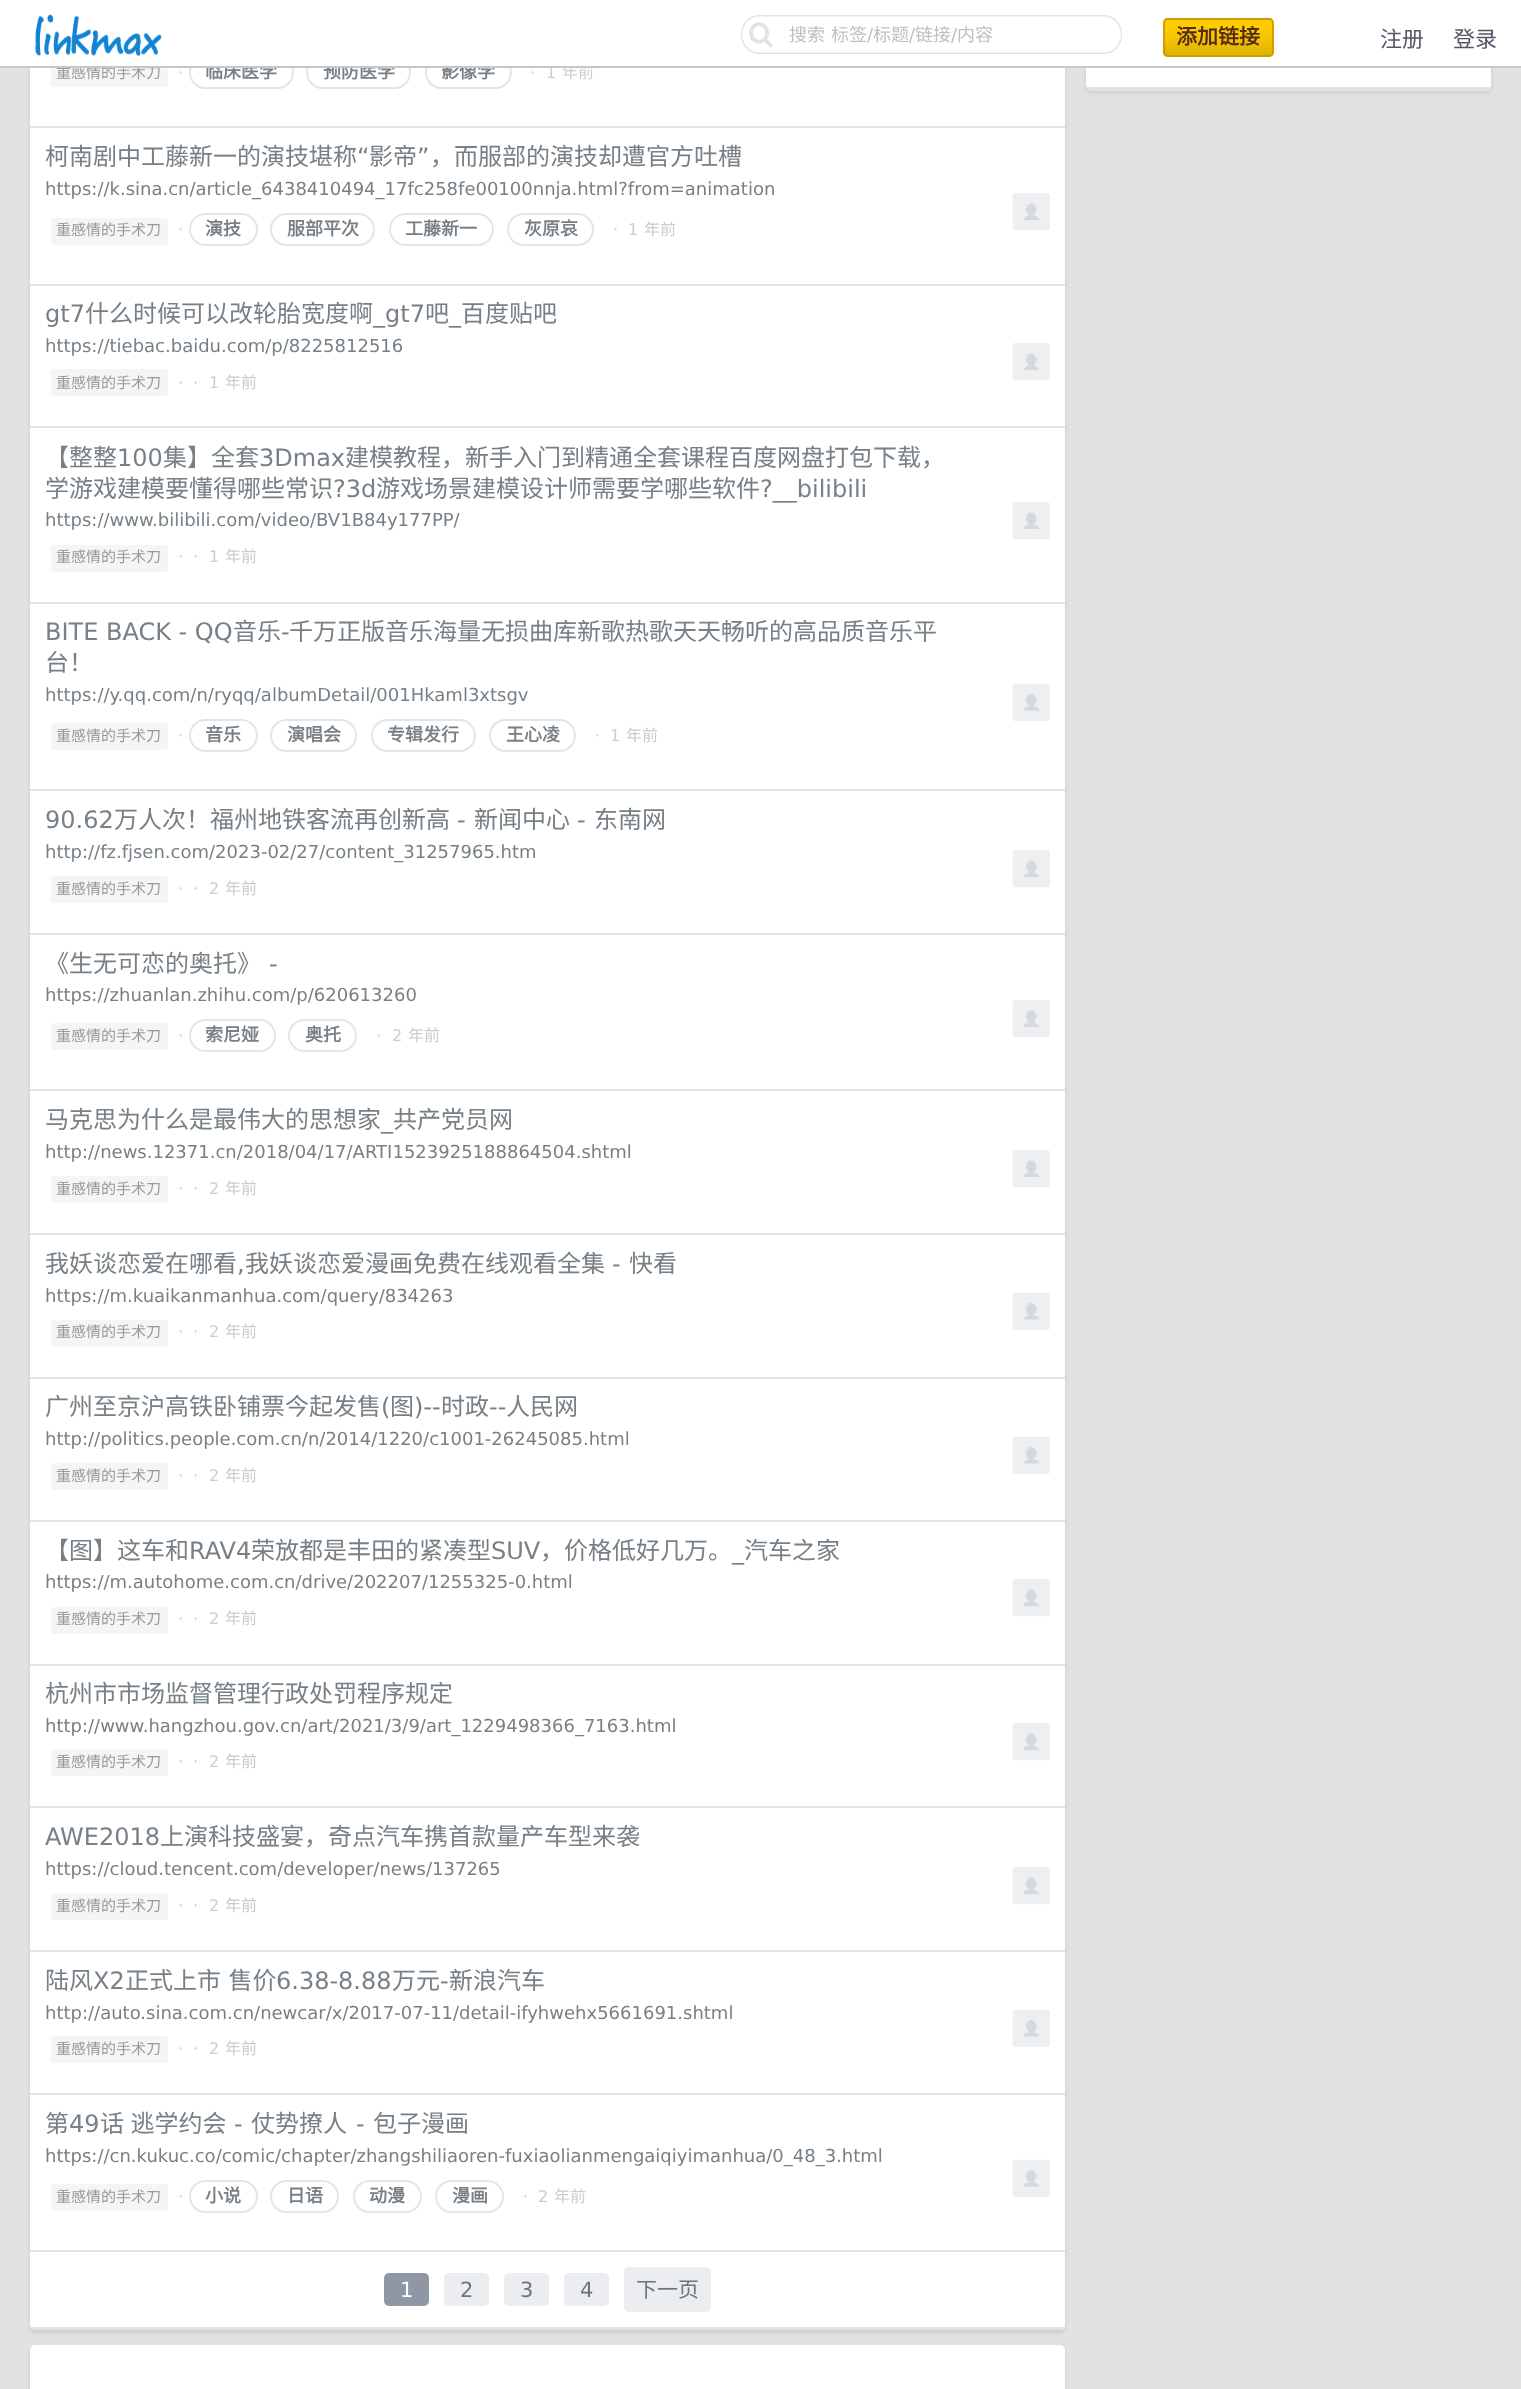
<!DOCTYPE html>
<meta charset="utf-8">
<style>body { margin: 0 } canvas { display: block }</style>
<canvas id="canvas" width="1521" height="2389"></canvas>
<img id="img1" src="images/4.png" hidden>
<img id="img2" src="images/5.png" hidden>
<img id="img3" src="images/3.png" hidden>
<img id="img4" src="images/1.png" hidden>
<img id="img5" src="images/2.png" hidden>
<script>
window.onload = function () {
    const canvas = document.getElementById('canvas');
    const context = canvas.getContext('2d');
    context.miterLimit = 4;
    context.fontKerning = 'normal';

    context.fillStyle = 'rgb(226, 226, 226)';
    context.fillRect(0, 0, 1521, 2389);
    context.fillStyle = 'rgba(0, 0, 0, 0.1)';
    context.filter = 'blur(2px)';
    context.beginPath();
    context.roundRect(1086, -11, 405, 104, 5);
    context.fill();
    context.filter = 'none';
    context.fillStyle = 'rgb(255, 255, 255)';
    context.beginPath();
    context.roundRect(1086, -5, 405, 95, 5);
    context.fill();
    context.fillStyle = 'rgb(226, 226, 226)';
    context.fillRect(1089, 89, 401, 2);
    context.fillRect(1086, 87, 405, 2);
    context.fillStyle = 'rgba(0, 0, 0, 0.1)';
    context.filter = 'blur(2px)';
    context.beginPath();
    context.roundRect(30, -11, 1035, 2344, 5);
    context.fill();
    context.filter = 'none';
    context.fillStyle = 'rgb(255, 255, 255)';
    context.beginPath();
    context.roundRect(30, -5, 1035, 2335, 5);
    context.fill();
    context.fillStyle = 'rgb(226, 226, 226)';
    context.fillRect(33, 2329, 1031, 1);
    context.fillRect(30, 126, 1035, 2);
    context.fillStyle = 'rgb(245, 245, 245)';
    context.beginPath();
    context.roundRect(51, 60, 117, 27, 3);
    context.fill();
    context.beginPath();
    context.roundRect(190, 57, 103, 31, 15.5);
    context.strokeStyle = 'rgb(229, 229, 229)';
    context.lineWidth = 2;
    context.stroke();
    context.beginPath();
    context.roundRect(307, 57, 103, 31, 15.5);
    context.stroke();
    context.beginPath();
    context.roundRect(426, 57, 85, 31, 15.5);
    context.stroke();
    context.fillStyle = 'rgb(226, 226, 226)';
    context.fillRect(30, 284, 1035, 2);
    context.fillStyle = 'rgb(245, 245, 245)';
    context.beginPath();
    context.roundRect(51, 218, 117, 27, 3);
    context.fill();
    context.beginPath();
    context.roundRect(190, 214, 67, 31, 15.5);
    context.stroke();
    context.beginPath();
    context.roundRect(271, 214, 103, 31, 15.5);
    context.stroke();
    context.beginPath();
    context.roundRect(390, 214, 103, 31, 15.5);
    context.stroke();
    context.beginPath();
    context.roundRect(508, 214, 85, 31, 15.5);
    context.stroke();
    context.drawImage(document.getElementById('img1'), 1012, 193, 38, 38);
    context.fillStyle = 'rgb(226, 226, 226)';
    context.fillRect(30, 426, 1035, 2);
    context.fillStyle = 'rgb(245, 245, 245)';
    context.beginPath();
    context.roundRect(51, 369, 117, 27, 3);
    context.fill();
    context.drawImage(document.getElementById('img1'), 1012, 343, 38, 38);
    context.fillStyle = 'rgb(226, 226, 226)';
    context.fillRect(30, 602, 1035, 2);
    context.fillStyle = 'rgb(245, 245, 245)';
    context.beginPath();
    context.roundRect(51, 545, 117, 27, 3);
    context.fill();
    context.drawImage(document.getElementById('img1'), 1012, 502, 38, 38);
    context.fillStyle = 'rgb(226, 226, 226)';
    context.fillRect(30, 789, 1035, 2);
    context.fillStyle = 'rgb(245, 245, 245)';
    context.beginPath();
    context.roundRect(51, 723, 117, 27, 3);
    context.fill();
    context.beginPath();
    context.roundRect(190, 720, 67, 31, 15.5);
    context.stroke();
    context.beginPath();
    context.roundRect(271, 720, 85, 31, 15.5);
    context.stroke();
    context.beginPath();
    context.roundRect(372, 720, 103, 31, 15.5);
    context.stroke();
    context.beginPath();
    context.roundRect(490, 720, 85, 31, 15.5);
    context.stroke();
    context.drawImage(document.getElementById('img2'), 1012, 683, 38, 38);
    context.fillStyle = 'rgb(226, 226, 226)';
    context.fillRect(30, 933, 1035, 2);
    context.fillStyle = 'rgb(245, 245, 245)';
    context.beginPath();
    context.roundRect(51, 876, 117, 27, 3);
    context.fill();
    context.drawImage(document.getElementById('img1'), 1012, 850, 38, 38);
    context.fillStyle = 'rgb(226, 226, 226)';
    context.fillRect(30, 1089, 1035, 2);
    context.fillStyle = 'rgb(245, 245, 245)';
    context.beginPath();
    context.roundRect(51, 1023, 117, 27, 3);
    context.fill();
    context.beginPath();
    context.roundRect(190, 1020, 85, 31, 15.5);
    context.stroke();
    context.beginPath();
    context.roundRect(289, 1020, 67, 31, 15.5);
    context.stroke();
    context.drawImage(document.getElementById('img1'), 1012, 1000, 38, 38);
    context.fillStyle = 'rgb(226, 226, 226)';
    context.fillRect(30, 1233, 1035, 2);
    context.fillStyle = 'rgb(245, 245, 245)';
    context.beginPath();
    context.roundRect(51, 1176, 117, 27, 3);
    context.fill();
    context.drawImage(document.getElementById('img1'), 1012, 1150, 38, 38);
    context.fillStyle = 'rgb(226, 226, 226)';
    context.fillRect(30, 1377, 1035, 2);
    context.fillStyle = 'rgb(245, 245, 245)';
    context.beginPath();
    context.roundRect(51, 1320, 117, 27, 3);
    context.fill();
    context.drawImage(document.getElementById('img2'), 1012, 1292, 38, 38);
    context.fillStyle = 'rgb(226, 226, 226)';
    context.fillRect(30, 1520, 1035, 2);
    context.fillStyle = 'rgb(245, 245, 245)';
    context.beginPath();
    context.roundRect(51, 1463, 117, 27, 3);
    context.fill();
    context.drawImage(document.getElementById('img2'), 1012, 1436, 38, 38);
    context.fillStyle = 'rgb(226, 226, 226)';
    context.fillRect(30, 1664, 1035, 2);
    context.fillStyle = 'rgb(245, 245, 245)';
    context.beginPath();
    context.roundRect(51, 1607, 117, 27, 3);
    context.fill();
    context.drawImage(document.getElementById('img1'), 1012, 1579, 38, 38);
    context.fillStyle = 'rgb(226, 226, 226)';
    context.fillRect(30, 1806, 1035, 2);
    context.fillStyle = 'rgb(245, 245, 245)';
    context.beginPath();
    context.roundRect(51, 1749, 117, 27, 3);
    context.fill();
    context.drawImage(document.getElementById('img1'), 1012, 1723, 38, 38);
    context.fillStyle = 'rgb(226, 226, 226)';
    context.fillRect(30, 1950, 1035, 2);
    context.fillStyle = 'rgb(245, 245, 245)';
    context.beginPath();
    context.roundRect(51, 1893, 117, 27, 3);
    context.fill();
    context.drawImage(document.getElementById('img1'), 1012, 1867, 38, 38);
    context.fillStyle = 'rgb(226, 226, 226)';
    context.fillRect(30, 2093, 1035, 2);
    context.fillStyle = 'rgb(245, 245, 245)';
    context.beginPath();
    context.roundRect(51, 2036, 117, 27, 3);
    context.fill();
    context.drawImage(document.getElementById('img2'), 1012, 2009, 38, 38);
    context.fillStyle = 'rgb(226, 226, 226)';
    context.fillRect(30, 2250, 1035, 2);
    context.fillStyle = 'rgb(245, 245, 245)';
    context.beginPath();
    context.roundRect(51, 2184, 117, 27, 3);
    context.fill();
    context.beginPath();
    context.roundRect(190, 2181, 67, 31, 15.5);
    context.stroke();
    context.beginPath();
    context.roundRect(271, 2181, 67, 31, 15.5);
    context.stroke();
    context.beginPath();
    context.roundRect(354, 2181, 67, 31, 15.5);
    context.stroke();
    context.beginPath();
    context.roundRect(436, 2181, 67, 31, 15.5);
    context.stroke();
    context.drawImage(document.getElementById('img2'), 1012, 2159, 38, 38);
    context.fillStyle = 'rgb(226, 226, 226)';
    context.fillRect(30, 2327, 1035, 2);
    context.fillStyle = 'rgb(144, 151, 164)';
    context.beginPath();
    context.roundRect(384, 2273, 45, 33, 5);
    context.fill();
    context.fillStyle = 'rgb(236, 237, 240)';
    context.beginPath();
    context.roundRect(444, 2273, 45, 33, 5);
    context.fill();
    context.beginPath();
    context.roundRect(504, 2273, 45, 33, 5);
    context.fill();
    context.beginPath();
    context.roundRect(564, 2273, 45, 33, 5);
    context.fill();
    context.beginPath();
    context.roundRect(624, 2267, 87, 45, 5);
    context.fill();
    context.fillStyle = 'rgba(0, 0, 0, 0.1)';
    context.filter = 'blur(2px)';
    context.beginPath();
    context.roundRect(30, 2348, 1035, 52, 5);
    context.fill();
    context.filter = 'none';
    context.fillStyle = 'rgb(255, 255, 255)';
    context.beginPath();
    context.roundRect(30, 2345, 1035, 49, 5);
    context.fill();
    context.font = '15px Noto Sans CJK SC';
    context.fillStyle = 'rgb(153, 153, 153)';
    context.fillText('重感情的手术刀', 56, 78);
    context.font = '16px DejaVu Sans';
    context.fillStyle = 'rgb(204, 204, 204)';
    context.fillText('·', 178, 78);
    context.font = 'bold 18px Noto Sans CJK SC';
    context.fillStyle = 'rgb(119, 128, 135)';
    context.fillText('临床医学', 205, 78);
    context.fillText('预防医学', 323, 78);
    context.fillText('影像学', 441, 78);
    context.font = '16px DejaVu Sans';
    context.fillStyle = 'rgb(204, 204, 204)';
    context.fillText('·', 530, 78);
    context.fillText('1', 546, 78);
    context.font = '16px Noto Sans CJK SC';
    context.fillText('年前', 562, 78);
    context.fillStyle = 'rgb(255, 255, 255)';
    context.fillRect(0, 0, 1521, 66);
    context.font = '22px Noto Sans CJK SC';
    context.fillStyle = 'rgb(85, 85, 102)';
    context.fillText('登录', 1453, 47);
    context.fillText('注册', 1380, 47);
    context.fillStyle = 'rgb(255, 204, 0)';
    context.beginPath();
    context.roundRect(1163, 18, 111, 39, 5);
    context.fill();
    context.drawImage(document.getElementById('img3'), 1162, 18, 112, 39);
    context.beginPath();
    context.roundRect(1164, 19, 109, 37, 4);
    context.strokeStyle = 'rgba(200, 150, 0, 0.8)';
    context.stroke();
    context.font = 'bold 21px Noto Sans CJK SC';
    context.fillStyle = 'rgb(83, 43, 23)';
    context.fillText('添加链接', 1176, 44);
    context.drawImage(document.getElementById('img4'), 35, 14, 127, 43);
    context.drawImage(document.getElementById('img5'), 741, 15, 381, 39);
    context.font = '18px Noto Sans CJK SC';
    context.fillStyle = 'rgb(192, 192, 192)';
    context.fillText('内容', 957, 41);
    context.fillText('链接', 915, 41);
    context.font = '18px DejaVu Sans';
    context.fillText('/', 951, 41);
    context.font = '18px Noto Sans CJK SC';
    context.fillText('标题', 873, 41);
    context.font = '18px DejaVu Sans';
    context.fillText('/', 909, 41);
    context.wordSpacing = '2px';
    context.font = '18px Noto Sans CJK SC';
    context.fillText('搜索 标签', 789, 41);
    context.wordSpacing = '0px';
    context.font = '18px DejaVu Sans';
    context.fillText('/', 867, 41);
    context.fillStyle = 'rgb(199, 199, 199)';
    context.fillRect(0, 66, 1521, 2);
    context.font = '24px Noto Sans CJK SC';
    context.fillStyle = 'rgb(119, 128, 135)';
    context.fillText('柯南剧中工藤新一的演技堪称', 45, 165);
    context.font = '24px DejaVu Sans';
    context.fillText('“', 357, 165);
    context.font = '24px Noto Sans CJK SC';
    context.fillText('影帝', 369, 165);
    context.font = '24px DejaVu Sans';
    context.fillText('”', 417, 165);
    context.font = '24px Noto Sans CJK SC';
    context.fillText('，而服部的演技却遭官方吐槽', 430, 165);
    context.font = '18px DejaVu Sans';
    context.fillText('https://k.sina.cn/article_6438410494_17fc258fe00100nnja.html?from=animation', 45, 195);
    context.font = '15px Noto Sans CJK SC';
    context.fillStyle = 'rgb(153, 153, 153)';
    context.fillText('重感情的手术刀', 56, 235);
    context.font = '16px DejaVu Sans';
    context.fillStyle = 'rgb(204, 204, 204)';
    context.fillText('·', 178, 235);
    context.font = 'bold 18px Noto Sans CJK SC';
    context.fillStyle = 'rgb(119, 128, 135)';
    context.fillText('演技', 205, 235);
    context.fillText('服部平次', 287, 235);
    context.fillText('工藤新一', 405, 235);
    context.fillText('灰原哀', 524, 235);
    context.font = '16px DejaVu Sans';
    context.fillStyle = 'rgb(204, 204, 204)';
    context.fillText('·', 613, 235);
    context.fillText('1', 628, 235);
    context.font = '16px Noto Sans CJK SC';
    context.fillText('年前', 644, 235);
    context.font = '24px DejaVu Sans';
    context.fillStyle = 'rgb(119, 128, 135)';
    context.fillText('gt7', 45, 322);
    context.font = '24px Noto Sans CJK SC';
    context.fillText('什么时候可以改轮胎宽度啊', 85, 322);
    context.font = '24px DejaVu Sans';
    context.fillText('_gt7', 373, 322);
    context.font = '24px Noto Sans CJK SC';
    context.fillText('吧', 425, 322);
    context.font = '24px DejaVu Sans';
    context.fillText('_', 449, 322);
    context.font = '24px Noto Sans CJK SC';
    context.fillText('百度贴吧', 461, 322);
    context.font = '18px DejaVu Sans';
    context.fillText('https://tiebac.baidu.com/p/8225812516', 45, 352);
    context.font = '15px Noto Sans CJK SC';
    context.fillStyle = 'rgb(153, 153, 153)';
    context.fillText('重感情的手术刀', 56, 388);
    context.font = '16px DejaVu Sans';
    context.fillStyle = 'rgb(204, 204, 204)';
    context.fillText('·', 178, 388);
    context.fillText('·', 193, 388);
    context.fillText('1', 209, 388);
    context.font = '16px Noto Sans CJK SC';
    context.fillText('年前', 225, 388);
    context.font = '24px Noto Sans CJK SC';
    context.fillStyle = 'rgb(119, 128, 135)';
    context.fillText('【整整', 45, 466);
    context.font = '24px DejaVu Sans';
    context.fillText('100', 117, 466);
    context.font = '24px Noto Sans CJK SC';
    context.fillText('集】全套', 163, 466);
    context.font = '24px DejaVu Sans';
    context.fillText('3Dmax', 259, 466);
    context.font = '24px Noto Sans CJK SC';
    context.fillText('建模教程，新手入门到精通全套课程百度网盘打包下载，', 345, 466);
    context.fillText('学游戏建模要懂得哪些常识', 45, 497);
    context.font = '24px DejaVu Sans';
    context.fillText('?3d', 333, 497);
    context.font = '24px Noto Sans CJK SC';
    context.fillText('游戏场景建模设计师需要学哪些软件', 376, 497);
    context.font = '24px DejaVu Sans';
    context.fillText('?__bilibili', 760, 497);
    context.font = '18px DejaVu Sans';
    context.fillText('https://www.bilibili.com/video/BV1B84y177PP/', 45, 526);
    context.font = '15px Noto Sans CJK SC';
    context.fillStyle = 'rgb(153, 153, 153)';
    context.fillText('重感情的手术刀', 56, 562);
    context.font = '16px DejaVu Sans';
    context.fillStyle = 'rgb(204, 204, 204)';
    context.fillText('·', 178, 562);
    context.fillText('·', 193, 562);
    context.fillText('1', 209, 562);
    context.font = '16px Noto Sans CJK SC';
    context.fillText('年前', 225, 562);
    context.font = '24px DejaVu Sans';
    context.fillStyle = 'rgb(119, 128, 135)';
    context.fillText('BITE BACK - QQ', 45, 640);
    context.font = '24px Noto Sans CJK SC';
    context.fillText('音乐', 233, 640);
    context.font = '24px DejaVu Sans';
    context.fillText('-', 281, 640);
    context.font = '24px Noto Sans CJK SC';
    context.fillText('千万正版音乐海量无损曲库新歌热歌天天畅听的高品质音乐平', 289, 640);
    context.fillText('台！', 45, 671);
    context.font = '18px DejaVu Sans';
    context.fillText('https://y.qq.com/n/ryqq/albumDetail/001Hkaml3xtsgv', 45, 701);
    context.font = '15px Noto Sans CJK SC';
    context.fillStyle = 'rgb(153, 153, 153)';
    context.fillText('重感情的手术刀', 56, 741);
    context.font = '16px DejaVu Sans';
    context.fillStyle = 'rgb(204, 204, 204)';
    context.fillText('·', 178, 741);
    context.font = 'bold 18px Noto Sans CJK SC';
    context.fillStyle = 'rgb(119, 128, 135)';
    context.fillText('音乐', 205, 741);
    context.fillText('演唱会', 287, 741);
    context.fillText('专辑发行', 387, 741);
    context.fillText('王心凌', 506, 741);
    context.font = '16px DejaVu Sans';
    context.fillStyle = 'rgb(204, 204, 204)';
    context.fillText('·', 595, 741);
    context.fillText('1', 610, 741);
    context.font = '16px Noto Sans CJK SC';
    context.fillText('年前', 626, 741);
    context.font = '24px DejaVu Sans';
    context.fillStyle = 'rgb(119, 128, 135)';
    context.fillText('90.62', 45, 828);
    context.font = '24px Noto Sans CJK SC';
    context.fillText('万人次！福州地铁客流再创新高', 114, 828);
    context.font = '24px DejaVu Sans';
    context.fillText('-', 457, 828);
    context.font = '24px Noto Sans CJK SC';
    context.fillText('新闻中心', 474, 828);
    context.font = '24px DejaVu Sans';
    context.fillText('-', 577, 828);
    context.font = '24px Noto Sans CJK SC';
    context.fillText('东南网', 594, 828);
    context.font = '18px DejaVu Sans';
    context.fillText('http://fz.fjsen.com/2023-02/27/content_31257965.htm', 45, 858);
    context.font = '15px Noto Sans CJK SC';
    context.fillStyle = 'rgb(153, 153, 153)';
    context.fillText('重感情的手术刀', 56, 894);
    context.font = '16px DejaVu Sans';
    context.fillStyle = 'rgb(204, 204, 204)';
    context.fillText('·', 178, 894);
    context.fillText('·', 193, 894);
    context.fillText('2', 209, 894);
    context.font = '16px Noto Sans CJK SC';
    context.fillText('年前', 225, 894);
    context.font = '24px Noto Sans CJK SC';
    context.fillStyle = 'rgb(119, 128, 135)';
    context.fillText('《生无可恋的奥托》', 45, 972);
    context.font = '24px DejaVu Sans';
    context.fillText('-', 269, 972);
    context.font = '18px DejaVu Sans';
    context.fillText('https://zhuanlan.zhihu.com/p/620613260', 45, 1001);
    context.font = '15px Noto Sans CJK SC';
    context.fillStyle = 'rgb(153, 153, 153)';
    context.fillText('重感情的手术刀', 56, 1041);
    context.font = '16px DejaVu Sans';
    context.fillStyle = 'rgb(204, 204, 204)';
    context.fillText('·', 178, 1041);
    context.font = 'bold 18px Noto Sans CJK SC';
    context.fillStyle = 'rgb(119, 128, 135)';
    context.fillText('索尼娅', 205, 1041);
    context.fillText('奥托', 305, 1041);
    context.font = '16px DejaVu Sans';
    context.fillStyle = 'rgb(204, 204, 204)';
    context.fillText('·', 376, 1041);
    context.fillText('2', 392, 1041);
    context.font = '16px Noto Sans CJK SC';
    context.fillText('年前', 408, 1041);
    context.font = '24px Noto Sans CJK SC';
    context.fillStyle = 'rgb(119, 128, 135)';
    context.fillText('马克思为什么是最伟大的思想家', 45, 1128);
    context.fillText('共产党员网', 393, 1128);
    context.font = '24px DejaVu Sans';
    context.fillText('_', 381, 1128);
    context.font = '18px DejaVu Sans';
    context.fillText('http://news.12371.cn/2018/04/17/ARTI1523925188864504.shtml', 45, 1158);
    context.font = '15px Noto Sans CJK SC';
    context.fillStyle = 'rgb(153, 153, 153)';
    context.fillText('重感情的手术刀', 56, 1194);
    context.font = '16px DejaVu Sans';
    context.fillStyle = 'rgb(204, 204, 204)';
    context.fillText('·', 178, 1194);
    context.fillText('·', 193, 1194);
    context.fillText('2', 209, 1194);
    context.font = '16px Noto Sans CJK SC';
    context.fillText('年前', 225, 1194);
    context.font = '24px Noto Sans CJK SC';
    context.fillStyle = 'rgb(119, 128, 135)';
    context.fillText('我妖谈恋爱在哪看', 45, 1272);
    context.fillText('我妖谈恋爱漫画免费在线观看全集', 245, 1272);
    context.font = '24px DejaVu Sans';
    context.fillText('-', 612, 1272);
    context.font = '24px Noto Sans CJK SC';
    context.fillText('快看', 629, 1272);
    context.font = '24px DejaVu Sans';
    context.fillText(',', 237, 1272);
    context.font = '18px DejaVu Sans';
    context.fillText('https://m.kuaikanmanhua.com/query/834263', 45, 1302);
    context.font = '15px Noto Sans CJK SC';
    context.fillStyle = 'rgb(153, 153, 153)';
    context.fillText('重感情的手术刀', 56, 1337);
    context.font = '16px DejaVu Sans';
    context.fillStyle = 'rgb(204, 204, 204)';
    context.fillText('·', 178, 1337);
    context.fillText('·', 193, 1337);
    context.fillText('2', 209, 1337);
    context.font = '16px Noto Sans CJK SC';
    context.fillText('年前', 225, 1337);
    context.font = '24px Noto Sans CJK SC';
    context.fillStyle = 'rgb(119, 128, 135)';
    context.fillText('广州至京沪高铁卧铺票今起发售', 45, 1415);
    context.font = '24px DejaVu Sans';
    context.fillText('(', 381, 1415);
    context.font = '24px Noto Sans CJK SC';
    context.fillText('图', 390, 1415);
    context.font = '24px DejaVu Sans';
    context.fillText(')--', 414, 1415);
    context.font = '24px Noto Sans CJK SC';
    context.fillText('时政', 441, 1415);
    context.font = '24px DejaVu Sans';
    context.fillText('--', 489, 1415);
    context.font = '24px Noto Sans CJK SC';
    context.fillText('人民网', 506, 1415);
    context.font = '18px DejaVu Sans';
    context.fillText('http://politics.people.com.cn/n/2014/1220/c1001-26245085.html', 45, 1445);
    context.font = '15px Noto Sans CJK SC';
    context.fillStyle = 'rgb(153, 153, 153)';
    context.fillText('重感情的手术刀', 56, 1481);
    context.font = '16px DejaVu Sans';
    context.fillStyle = 'rgb(204, 204, 204)';
    context.fillText('·', 178, 1481);
    context.fillText('·', 193, 1481);
    context.fillText('2', 209, 1481);
    context.font = '16px Noto Sans CJK SC';
    context.fillText('年前', 225, 1481);
    context.font = '24px Noto Sans CJK SC';
    context.fillStyle = 'rgb(119, 128, 135)';
    context.fillText('【图】这车和', 45, 1559);
    context.font = '24px DejaVu Sans';
    context.fillText('RAV4', 189, 1559);
    context.font = '24px Noto Sans CJK SC';
    context.fillText('荣放都是丰田的紧凑型', 251, 1559);
    context.font = '24px DejaVu Sans';
    context.fillText('SUV', 491, 1559);
    context.font = '24px Noto Sans CJK SC';
    context.fillText('，价格低好几万。', 540, 1559);
    context.fillText('汽车之家', 744, 1559);
    context.font = '24px DejaVu Sans';
    context.fillText('_', 732, 1559);
    context.font = '18px DejaVu Sans';
    context.fillText('https://m.autohome.com.cn/drive/202207/1255325-0.html', 45, 1588);
    context.font = '15px Noto Sans CJK SC';
    context.fillStyle = 'rgb(153, 153, 153)';
    context.fillText('重感情的手术刀', 56, 1624);
    context.font = '16px DejaVu Sans';
    context.fillStyle = 'rgb(204, 204, 204)';
    context.fillText('·', 178, 1624);
    context.fillText('·', 193, 1624);
    context.fillText('2', 209, 1624);
    context.font = '16px Noto Sans CJK SC';
    context.fillText('年前', 225, 1624);
    context.font = '24px Noto Sans CJK SC';
    context.fillStyle = 'rgb(119, 128, 135)';
    context.fillText('杭州市市场监督管理行政处罚程序规定', 45, 1702);
    context.font = '18px DejaVu Sans';
    context.fillText('http://www.hangzhou.gov.cn/art/2021/3/9/art_1229498366_7163.html', 45, 1732);
    context.font = '15px Noto Sans CJK SC';
    context.fillStyle = 'rgb(153, 153, 153)';
    context.fillText('重感情的手术刀', 56, 1767);
    context.font = '16px DejaVu Sans';
    context.fillStyle = 'rgb(204, 204, 204)';
    context.fillText('·', 178, 1767);
    context.fillText('·', 193, 1767);
    context.fillText('2', 209, 1767);
    context.font = '16px Noto Sans CJK SC';
    context.fillText('年前', 225, 1767);
    context.font = '24px DejaVu Sans';
    context.fillStyle = 'rgb(119, 128, 135)';
    context.fillText('AWE2018', 45, 1845);
    context.font = '24px Noto Sans CJK SC';
    context.fillText('上演科技盛宴，奇点汽车携首款量产车型来袭', 160, 1845);
    context.font = '18px DejaVu Sans';
    context.fillText('https://cloud.tencent.com/developer/news/137265', 45, 1875);
    context.font = '15px Noto Sans CJK SC';
    context.fillStyle = 'rgb(153, 153, 153)';
    context.fillText('重感情的手术刀', 56, 1911);
    context.font = '16px DejaVu Sans';
    context.fillStyle = 'rgb(204, 204, 204)';
    context.fillText('·', 178, 1911);
    context.fillText('·', 193, 1911);
    context.fillText('2', 209, 1911);
    context.font = '16px Noto Sans CJK SC';
    context.fillText('年前', 225, 1911);
    context.font = '24px Noto Sans CJK SC';
    context.fillStyle = 'rgb(119, 128, 135)';
    context.fillText('陆风', 45, 1989);
    context.font = '24px DejaVu Sans';
    context.fillText('X2', 93, 1989);
    context.wordSpacing = '2px';
    context.font = '24px Noto Sans CJK SC';
    context.fillText('正式上市 售价', 125, 1989);
    context.wordSpacing = '0px';
    context.font = '24px DejaVu Sans';
    context.fillText('6.38-8.88', 276, 1989);
    context.font = '24px Noto Sans CJK SC';
    context.fillText('万元', 392, 1989);
    context.font = '24px DejaVu Sans';
    context.fillText('-', 440, 1989);
    context.font = '24px Noto Sans CJK SC';
    context.fillText('新浪汽车', 449, 1989);
    context.font = '18px DejaVu Sans';
    context.fillText('http://auto.sina.com.cn/newcar/x/2017-07-11/detail-ifyhwehx5661691.shtml', 45, 2019);
    context.font = '15px Noto Sans CJK SC';
    context.fillStyle = 'rgb(153, 153, 153)';
    context.fillText('重感情的手术刀', 56, 2054);
    context.font = '16px DejaVu Sans';
    context.fillStyle = 'rgb(204, 204, 204)';
    context.fillText('·', 178, 2054);
    context.fillText('·', 193, 2054);
    context.fillText('2', 209, 2054);
    context.font = '16px Noto Sans CJK SC';
    context.fillText('年前', 225, 2054);
    context.font = '24px Noto Sans CJK SC';
    context.fillStyle = 'rgb(119, 128, 135)';
    context.fillText('第', 45, 2132);
    context.font = '24px DejaVu Sans';
    context.fillText('49', 69, 2132);
    context.wordSpacing = '1px';
    context.font = '24px Noto Sans CJK SC';
    context.fillText('话 逃学约会', 100, 2132);
    context.wordSpacing = '0px';
    context.font = '24px DejaVu Sans';
    context.fillText('-', 234, 2132);
    context.font = '24px Noto Sans CJK SC';
    context.fillText('仗势撩人', 251, 2132);
    context.font = '24px DejaVu Sans';
    context.fillText('-', 356, 2132);
    context.font = '24px Noto Sans CJK SC';
    context.fillText('包子漫画', 373, 2132);
    context.font = '18px DejaVu Sans';
    context.fillText('https://cn.kukuc.co/comic/chapter/zhangshiliaoren-fuxiaolianmengaiqiyimanhua/0_48_3.html', 45, 2162);
    context.font = '15px Noto Sans CJK SC';
    context.fillStyle = 'rgb(153, 153, 153)';
    context.fillText('重感情的手术刀', 56, 2202);
    context.font = '16px DejaVu Sans';
    context.fillStyle = 'rgb(204, 204, 204)';
    context.fillText('·', 178, 2202);
    context.font = 'bold 18px Noto Sans CJK SC';
    context.fillStyle = 'rgb(119, 128, 135)';
    context.fillText('小说', 205, 2202);
    context.fillText('日语', 287, 2202);
    context.fillText('动漫', 369, 2202);
    context.fillText('漫画', 452, 2202);
    context.font = '16px DejaVu Sans';
    context.fillStyle = 'rgb(204, 204, 204)';
    context.fillText('·', 523, 2202);
    context.fillText('2', 538, 2202);
    context.font = '16px Noto Sans CJK SC';
    context.fillText('年前', 554, 2202);
    context.font = '21px DejaVu Sans';
    context.fillStyle = 'rgb(255, 255, 255)';
    context.fillText('1', 400, 2297);
    context.fillStyle = 'rgb(107, 116, 133)';
    context.fillText('2', 460, 2297);
    context.fillText('3', 520, 2297);
    context.fillText('4', 580, 2297);
    context.font = '21px Noto Sans CJK SC';
    context.fillText('下一页', 636, 2297);
};
</script>
